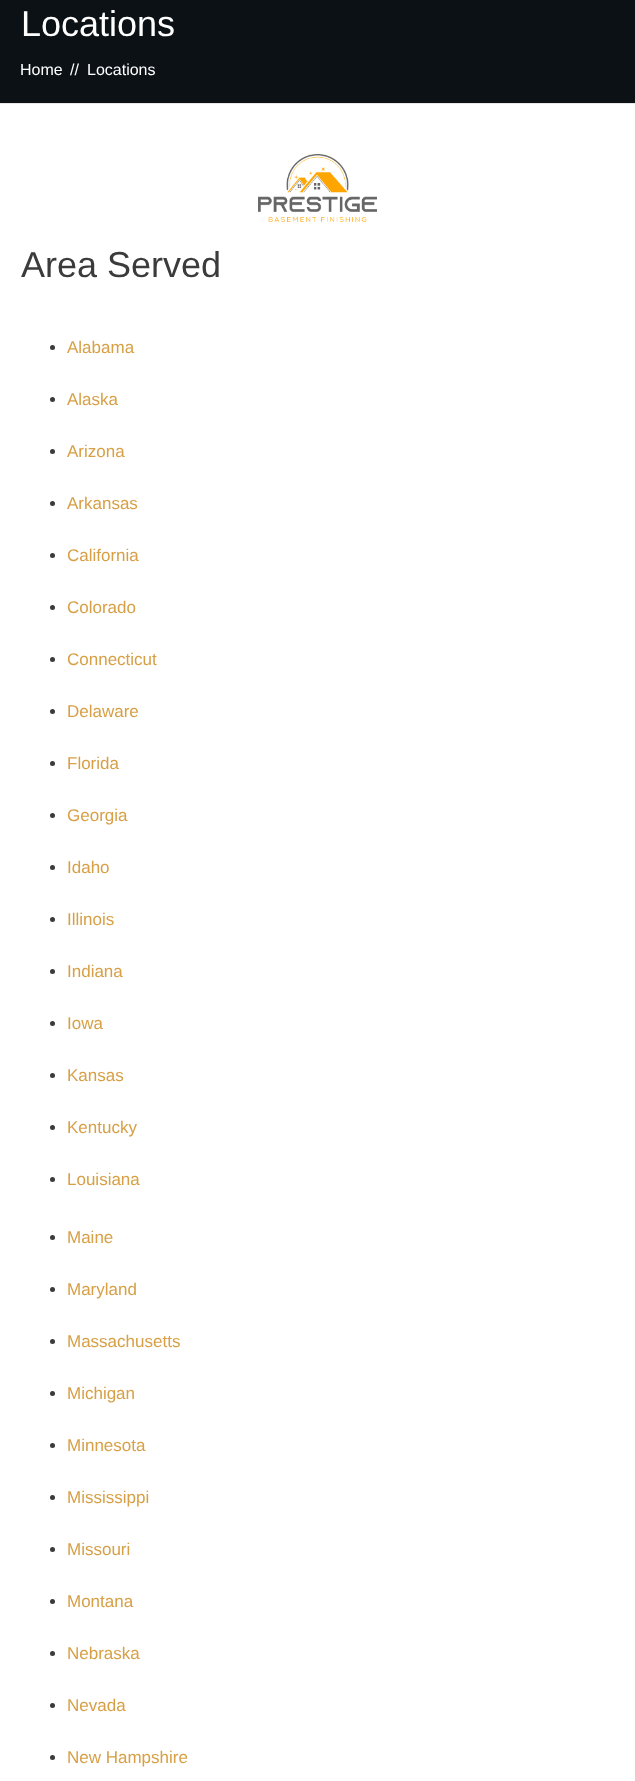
<!DOCTYPE html>
<meta charset="utf-8">
<style>body { margin: 0 } canvas { display: block }</style>
<canvas id="canvas" width="635" height="1781"></canvas>
<img id="img1" src="images/1.png" hidden>
<script>
window.onload = function () {
    const canvas = document.getElementById('canvas');
    const context = canvas.getContext('2d');
    context.miterLimit = 4;
    context.fontKerning = 'normal';

    context.fillStyle = 'rgb(255, 255, 255)';
    context.fillRect(0, 0, 635, 1781);
    context.fillStyle = 'rgb(12, 17, 21)';
    context.fillRect(0, 0, 635, 103);
    context.fillStyle = 'rgb(230, 230, 230)';
    context.fillRect(0, 103, 635, 1);
    context.drawImage(document.getElementById('img1'), 258, 154, 119, 68);
    context.fillStyle = 'rgb(59, 59, 59)';
    context.beginPath();
    context.arc(52.5, 347.5, 2.5, 0, 2 * Math.PI);
    context.fill();
    context.beginPath();
    context.arc(52.5, 399.5, 2.5, 0, 2 * Math.PI);
    context.fill();
    context.beginPath();
    context.arc(52.5, 451.5, 2.5, 0, 2 * Math.PI);
    context.fill();
    context.beginPath();
    context.arc(52.5, 503.5, 2.5, 0, 2 * Math.PI);
    context.fill();
    context.beginPath();
    context.arc(52.5, 555.5, 2.5, 0, 2 * Math.PI);
    context.fill();
    context.beginPath();
    context.arc(52.5, 607.5, 2.5, 0, 2 * Math.PI);
    context.fill();
    context.beginPath();
    context.arc(52.5, 659.5, 2.5, 0, 2 * Math.PI);
    context.fill();
    context.beginPath();
    context.arc(52.5, 711.5, 2.5, 0, 2 * Math.PI);
    context.fill();
    context.beginPath();
    context.arc(52.5, 763.5, 2.5, 0, 2 * Math.PI);
    context.fill();
    context.beginPath();
    context.arc(52.5, 815.5, 2.5, 0, 2 * Math.PI);
    context.fill();
    context.beginPath();
    context.arc(52.5, 867.5, 2.5, 0, 2 * Math.PI);
    context.fill();
    context.beginPath();
    context.arc(52.5, 919.5, 2.5, 0, 2 * Math.PI);
    context.fill();
    context.beginPath();
    context.arc(52.5, 971.5, 2.5, 0, 2 * Math.PI);
    context.fill();
    context.beginPath();
    context.arc(52.5, 1023.5, 2.5, 0, 2 * Math.PI);
    context.fill();
    context.beginPath();
    context.arc(52.5, 1075.5, 2.5, 0, 2 * Math.PI);
    context.fill();
    context.beginPath();
    context.arc(52.5, 1127.5, 2.5, 0, 2 * Math.PI);
    context.fill();
    context.beginPath();
    context.arc(52.5, 1179.5, 2.5, 0, 2 * Math.PI);
    context.fill();
    context.beginPath();
    context.arc(52.5, 1237.5, 2.5, 0, 2 * Math.PI);
    context.fill();
    context.beginPath();
    context.arc(52.5, 1289.5, 2.5, 0, 2 * Math.PI);
    context.fill();
    context.beginPath();
    context.arc(52.5, 1341.5, 2.5, 0, 2 * Math.PI);
    context.fill();
    context.beginPath();
    context.arc(52.5, 1393.5, 2.5, 0, 2 * Math.PI);
    context.fill();
    context.beginPath();
    context.arc(52.5, 1445.5, 2.5, 0, 2 * Math.PI);
    context.fill();
    context.beginPath();
    context.arc(52.5, 1497.5, 2.5, 0, 2 * Math.PI);
    context.fill();
    context.beginPath();
    context.arc(52.5, 1549.5, 2.5, 0, 2 * Math.PI);
    context.fill();
    context.beginPath();
    context.arc(52.5, 1601.5, 2.5, 0, 2 * Math.PI);
    context.fill();
    context.beginPath();
    context.arc(52.5, 1653.5, 2.5, 0, 2 * Math.PI);
    context.fill();
    context.beginPath();
    context.arc(52.5, 1705.5, 2.5, 0, 2 * Math.PI);
    context.fill();
    context.beginPath();
    context.arc(52.5, 1757.5, 2.5, 0, 2 * Math.PI);
    context.fill();
    context.font = '36px Liberation Sans';
    context.fillStyle = 'rgb(255, 255, 255)';
    context.fillText('Locations', 21, 36);
    context.font = '16px Liberation Sans';
    context.fillText('Home', 20, 75);
    context.fillText('//', 70, 75);
    context.fillText('Locations', 87, 75);
    context.font = '36px Liberation Sans';
    context.fillStyle = 'rgb(59, 59, 59)';
    context.fillText('Area Served', 21, 277);
    context.font = '17px Liberation Sans';
    context.fillStyle = 'rgb(215, 160, 70)';
    context.fillText('Alabama', 67, 353);
    context.fillText('Alaska', 67, 405);
    context.fillText('Arizona', 67, 457);
    context.fillText('Arkansas', 67, 509);
    context.fillText('California', 67, 561);
    context.fillText('Colorado', 67, 613);
    context.fillText('Connecticut', 67, 665);
    context.fillText('Delaware', 67, 717);
    context.fillText('Florida', 67, 769);
    context.fillText('Georgia', 67, 821);
    context.fillText('Idaho', 67, 873);
    context.fillText('Illinois', 67, 925);
    context.fillText('Indiana', 67, 977);
    context.fillText('Iowa', 67, 1029);
    context.fillText('Kansas', 67, 1081);
    context.fillText('Kentucky', 67, 1133);
    context.fillText('Louisiana', 67, 1185);
    context.fillText('Maine', 67, 1243);
    context.fillText('Maryland', 67, 1295);
    context.fillText('Massachusetts', 67, 1347);
    context.fillText('Michigan', 67, 1399);
    context.fillText('Minnesota', 67, 1451);
    context.fillText('Mississippi', 67, 1503);
    context.fillText('Missouri', 67, 1555);
    context.fillText('Montana', 67, 1607);
    context.fillText('Nebraska', 67, 1659);
    context.fillText('Nevada', 67, 1711);
    context.fillText('New Hampshire', 67, 1763);
};
</script>
